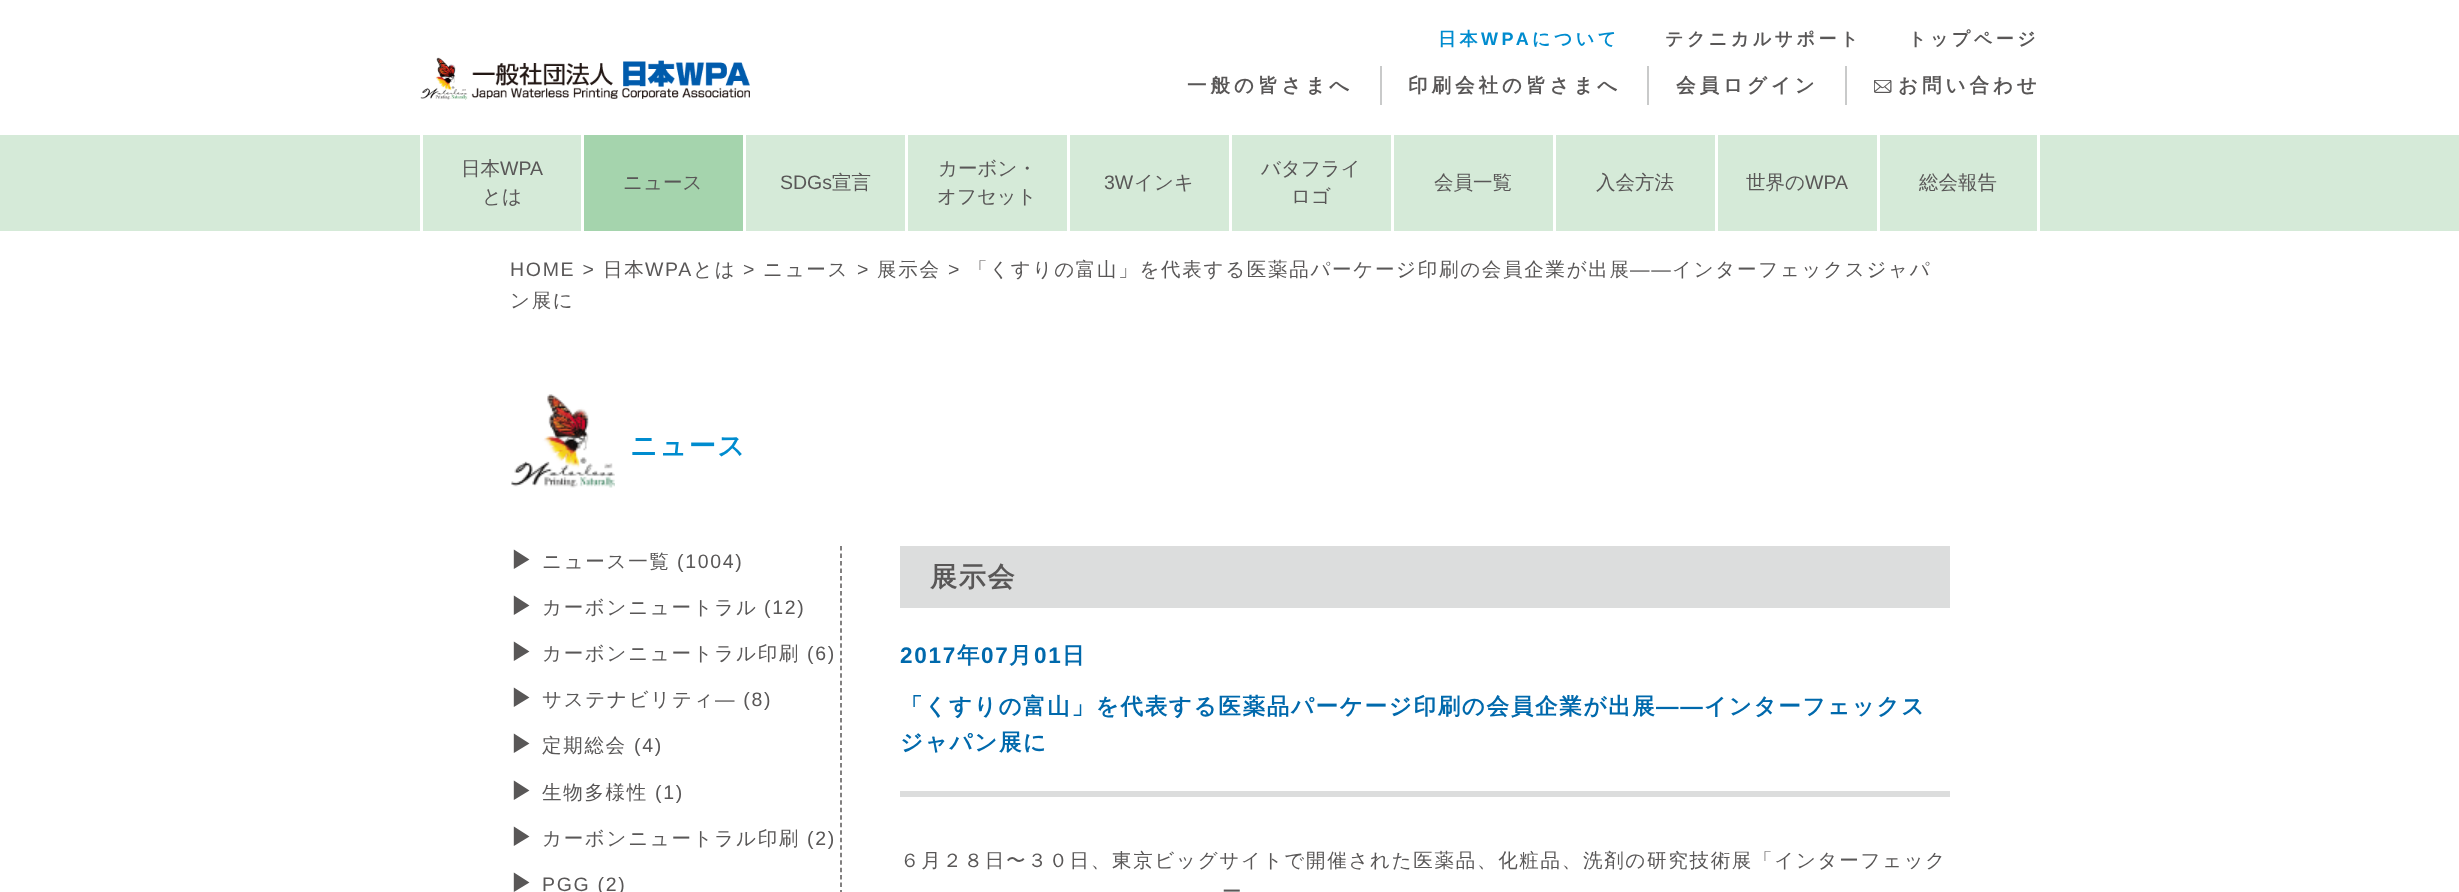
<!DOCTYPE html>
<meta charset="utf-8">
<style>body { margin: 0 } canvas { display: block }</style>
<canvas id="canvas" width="2459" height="892"></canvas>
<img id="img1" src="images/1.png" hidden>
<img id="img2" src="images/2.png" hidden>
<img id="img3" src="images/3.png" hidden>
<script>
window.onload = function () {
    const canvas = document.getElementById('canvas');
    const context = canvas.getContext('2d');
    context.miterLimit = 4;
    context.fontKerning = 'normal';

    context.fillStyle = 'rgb(255, 255, 255)';
    context.fillRect(0, 0, 2459, 892);
    context.drawImage(document.getElementById('img1'), 420, 57, 330, 43);
    context.fillStyle = 'rgb(201, 202, 202)';
    context.fillRect(1380, 66, 2, 39);
    context.fillRect(1647, 66, 2, 39);
    context.fillRect(1845, 66, 2, 39);
    context.drawImage(document.getElementById('img2'), 1874, 80, 18, 13);
    context.fillStyle = 'rgb(213, 234, 216)';
    context.fillRect(0, 135, 2459, 96);
    context.fillStyle = 'rgb(255, 255, 255)';
    context.fillRect(581, 135, 3, 96);
    context.fillRect(420, 135, 3, 96);
    context.fillRect(743, 135, 3, 96);
    context.fillStyle = 'rgb(165, 212, 173)';
    context.fillRect(584, 135, 159, 96);
    context.fillStyle = 'rgb(255, 255, 255)';
    context.fillRect(905, 135, 3, 96);
    context.fillRect(1067, 135, 3, 96);
    context.fillRect(1229, 135, 3, 96);
    context.fillRect(1391, 135, 3, 96);
    context.fillRect(1553, 135, 3, 96);
    context.fillRect(1715, 135, 3, 96);
    context.fillRect(1877, 135, 3, 96);
    context.fillRect(2037, 135, 3, 96);
    context.drawImage(document.getElementById('img3'), 511, 394, 104, 94);
    context.beginPath();
    context.moveTo(841, 546);
    context.lineTo(841, 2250);
    context.strokeStyle = 'rgb(89, 87, 87)';
    context.lineWidth = 1.5;
    context.setLineDash([4.5, 2.98]);
    context.stroke();
    context.fillStyle = 'rgb(220, 221, 221)';
    context.fillRect(900, 546, 1050, 62);
    context.fillRect(900, 791, 1050, 6);
    context.letterSpacing = '3.5px';
    context.font = 'bold 18px WenQuanYi Zen Hei';
    context.fillStyle = 'rgb(0, 140, 207)';
    context.fillText('日本', 1438, 45);
    context.font = 'bold 18px Liberation Sans';
    context.fillText('WPA', 1481, 45);
    context.font = 'bold 18px WenQuanYi Zen Hei';
    context.fillText('について', 1532, 45);
    context.fillStyle = 'rgb(89, 87, 87)';
    context.fillText('テクニカルサポート', 1665, 45);
    context.fillText('トップページ', 1908, 45);
    context.letterSpacing = '4px';
    context.font = 'bold 19.5px WenQuanYi Zen Hei';
    context.fillText('一般の皆さまへ', 1187, 92);
    context.fillText('印刷会社の皆さまへ', 1408, 92);
    context.fillText('会員ログイン', 1676, 92);
    context.fillText('お問い合わせ', 1898, 92);
    context.letterSpacing = '0px';
    context.font = '500 19.5px WenQuanYi Zen Hei';
    context.fillText('日本', 461, 175);
    context.font = '19.5px Liberation Sans';
    context.fillText('WPA', 500, 175);
    context.font = '500 19.5px WenQuanYi Zen Hei';
    context.fillText('とは', 482, 203);
    context.fillText('ニュース', 623, 189);
    context.font = '19.5px Liberation Sans';
    context.fillText('SDGs', 780, 189);
    context.font = '500 19.5px WenQuanYi Zen Hei';
    context.fillText('宣言', 832, 189);
    context.fillText('カーボン・', 938, 175);
    context.fillText('オフセット', 937, 203);
    context.font = '19.5px Liberation Sans';
    context.fillText('3W', 1104, 189);
    context.font = '500 19.5px WenQuanYi Zen Hei';
    context.fillText('インキ', 1134, 189);
    context.fillText('バタフライ', 1261, 175);
    context.fillText('ロゴ', 1291, 203);
    context.fillText('会員一覧', 1434, 189);
    context.fillText('入会方法', 1596, 189);
    context.fillText('世界の', 1746, 189);
    context.font = '19.5px Liberation Sans';
    context.fillText('WPA', 1805, 189);
    context.font = '500 19.5px WenQuanYi Zen Hei';
    context.fillText('総会報告', 1919, 189);
    context.letterSpacing = '1.7px';
    context.font = '19.5px Liberation Sans';
    context.fillText('HOME >', 510, 276);
    context.font = '500 19.5px WenQuanYi Zen Hei';
    context.fillText('日本', 603, 276);
    context.font = '19.5px Liberation Sans';
    context.fillText('WPA', 645, 276);
    context.font = '500 19.5px WenQuanYi Zen Hei';
    context.fillText('とは', 693, 276);
    context.font = '19.5px Liberation Sans';
    context.fillText('>', 743, 276);
    context.font = '500 19.5px WenQuanYi Zen Hei';
    context.fillText('ニュース', 763, 276);
    context.font = '19.5px Liberation Sans';
    context.fillText('>', 857, 276);
    context.font = '500 19.5px WenQuanYi Zen Hei';
    context.fillText('展示会', 877, 276);
    context.font = '19.5px Liberation Sans';
    context.fillText('>', 948, 276);
    context.font = '500 19.5px WenQuanYi Zen Hei';
    context.fillText('「くすりの富山」を代表する医薬品パーケージ印刷の会員企業が出展', 968, 276);
    context.font = '19.5px Liberation Sans';
    context.fillText('——', 1630, 276);
    context.font = '500 19.5px WenQuanYi Zen Hei';
    context.fillText('インターフェックスジャパ', 1672, 276);
    context.fillText('ン展に', 510, 307);
    context.font = 'bold 27px WenQuanYi Zen Hei';
    context.fillStyle = 'rgb(0, 140, 207)';
    context.fillText('ニュース', 630, 455);
    context.font = '500 24px WenQuanYi Zen Hei';
    context.fillStyle = 'rgb(89, 87, 87)';
    context.fillText('▶', 510, 568);
    context.font = '500 19.5px WenQuanYi Zen Hei';
    context.fillText('ニュース一覧', 542, 568);
    context.font = '19.5px Liberation Sans';
    context.fillText('(1004)', 677, 568);
    context.font = '500 24px WenQuanYi Zen Hei';
    context.fillText('▶', 510, 614);
    context.font = '500 19.5px WenQuanYi Zen Hei';
    context.fillText('カーボンニュートラル', 542, 614);
    context.font = '19.5px Liberation Sans';
    context.fillText('(12)', 764, 614);
    context.font = '500 24px WenQuanYi Zen Hei';
    context.fillText('▶', 510, 660);
    context.font = '500 19.5px WenQuanYi Zen Hei';
    context.fillText('カーボンニュートラル印刷', 542, 660);
    context.font = '19.5px Liberation Sans';
    context.fillText('(6)', 807, 660);
    context.font = '500 24px WenQuanYi Zen Hei';
    context.fillText('▶', 510, 706);
    context.font = '500 19.5px WenQuanYi Zen Hei';
    context.fillText('サステナビリティ', 542, 706);
    context.font = '19.5px Liberation Sans';
    context.fillText('― (8)', 715, 706);
    context.font = '500 24px WenQuanYi Zen Hei';
    context.fillText('▶', 510, 752);
    context.font = '500 19.5px WenQuanYi Zen Hei';
    context.fillText('定期総会', 542, 752);
    context.font = '19.5px Liberation Sans';
    context.fillText('(4)', 634, 752);
    context.font = '500 24px WenQuanYi Zen Hei';
    context.fillText('▶', 510, 799);
    context.font = '500 19.5px WenQuanYi Zen Hei';
    context.fillText('生物多様性', 542, 799);
    context.font = '19.5px Liberation Sans';
    context.fillText('(1)', 655, 799);
    context.font = '500 24px WenQuanYi Zen Hei';
    context.fillText('▶', 510, 845);
    context.font = '500 19.5px WenQuanYi Zen Hei';
    context.fillText('カーボンニュートラル印刷', 542, 845);
    context.font = '19.5px Liberation Sans';
    context.fillText('(2)', 807, 845);
    context.font = '500 24px WenQuanYi Zen Hei';
    context.fillText('▶', 510, 891);
    context.font = '19.5px Liberation Sans';
    context.fillText('PGG (2)', 542, 891);
    context.font = 'bold 27px WenQuanYi Zen Hei';
    context.fillText('展示会', 930, 586);
    context.font = 'bold 22.5px Liberation Sans';
    context.fillStyle = 'rgb(0, 105, 172)';
    context.fillText('2017', 900, 663);
    context.font = 'bold 22.5px WenQuanYi Zen Hei';
    context.fillText('年', 957, 663);
    context.font = 'bold 22.5px Liberation Sans';
    context.fillText('07', 981, 663);
    context.font = 'bold 22.5px WenQuanYi Zen Hei';
    context.fillText('月', 1009, 663);
    context.font = 'bold 22.5px Liberation Sans';
    context.fillText('01', 1034, 663);
    context.font = 'bold 22.5px WenQuanYi Zen Hei';
    context.fillText('日', 1062, 663);
    context.fillText('「くすりの富山」を代表する医薬品パーケージ印刷の会員企業が出展', 900, 714);
    context.font = 'bold 22.5px Liberation Sans';
    context.fillText('——', 1656, 714);
    context.font = 'bold 22.5px WenQuanYi Zen Hei';
    context.fillText('インターフェックス', 1704, 714);
    context.fillText('ジャパン展に', 900, 750);
    context.font = '500 19.5px WenQuanYi Zen Hei';
    context.fillStyle = 'rgb(89, 87, 87)';
    context.fillText('６月２８日〜３０日、東京ビッグサイトで開催された医薬品、化粧品、洗剤の研究技術展「インターフェック', 900, 867);
    context.fillText('ー', 1222, 898);
};
</script>
